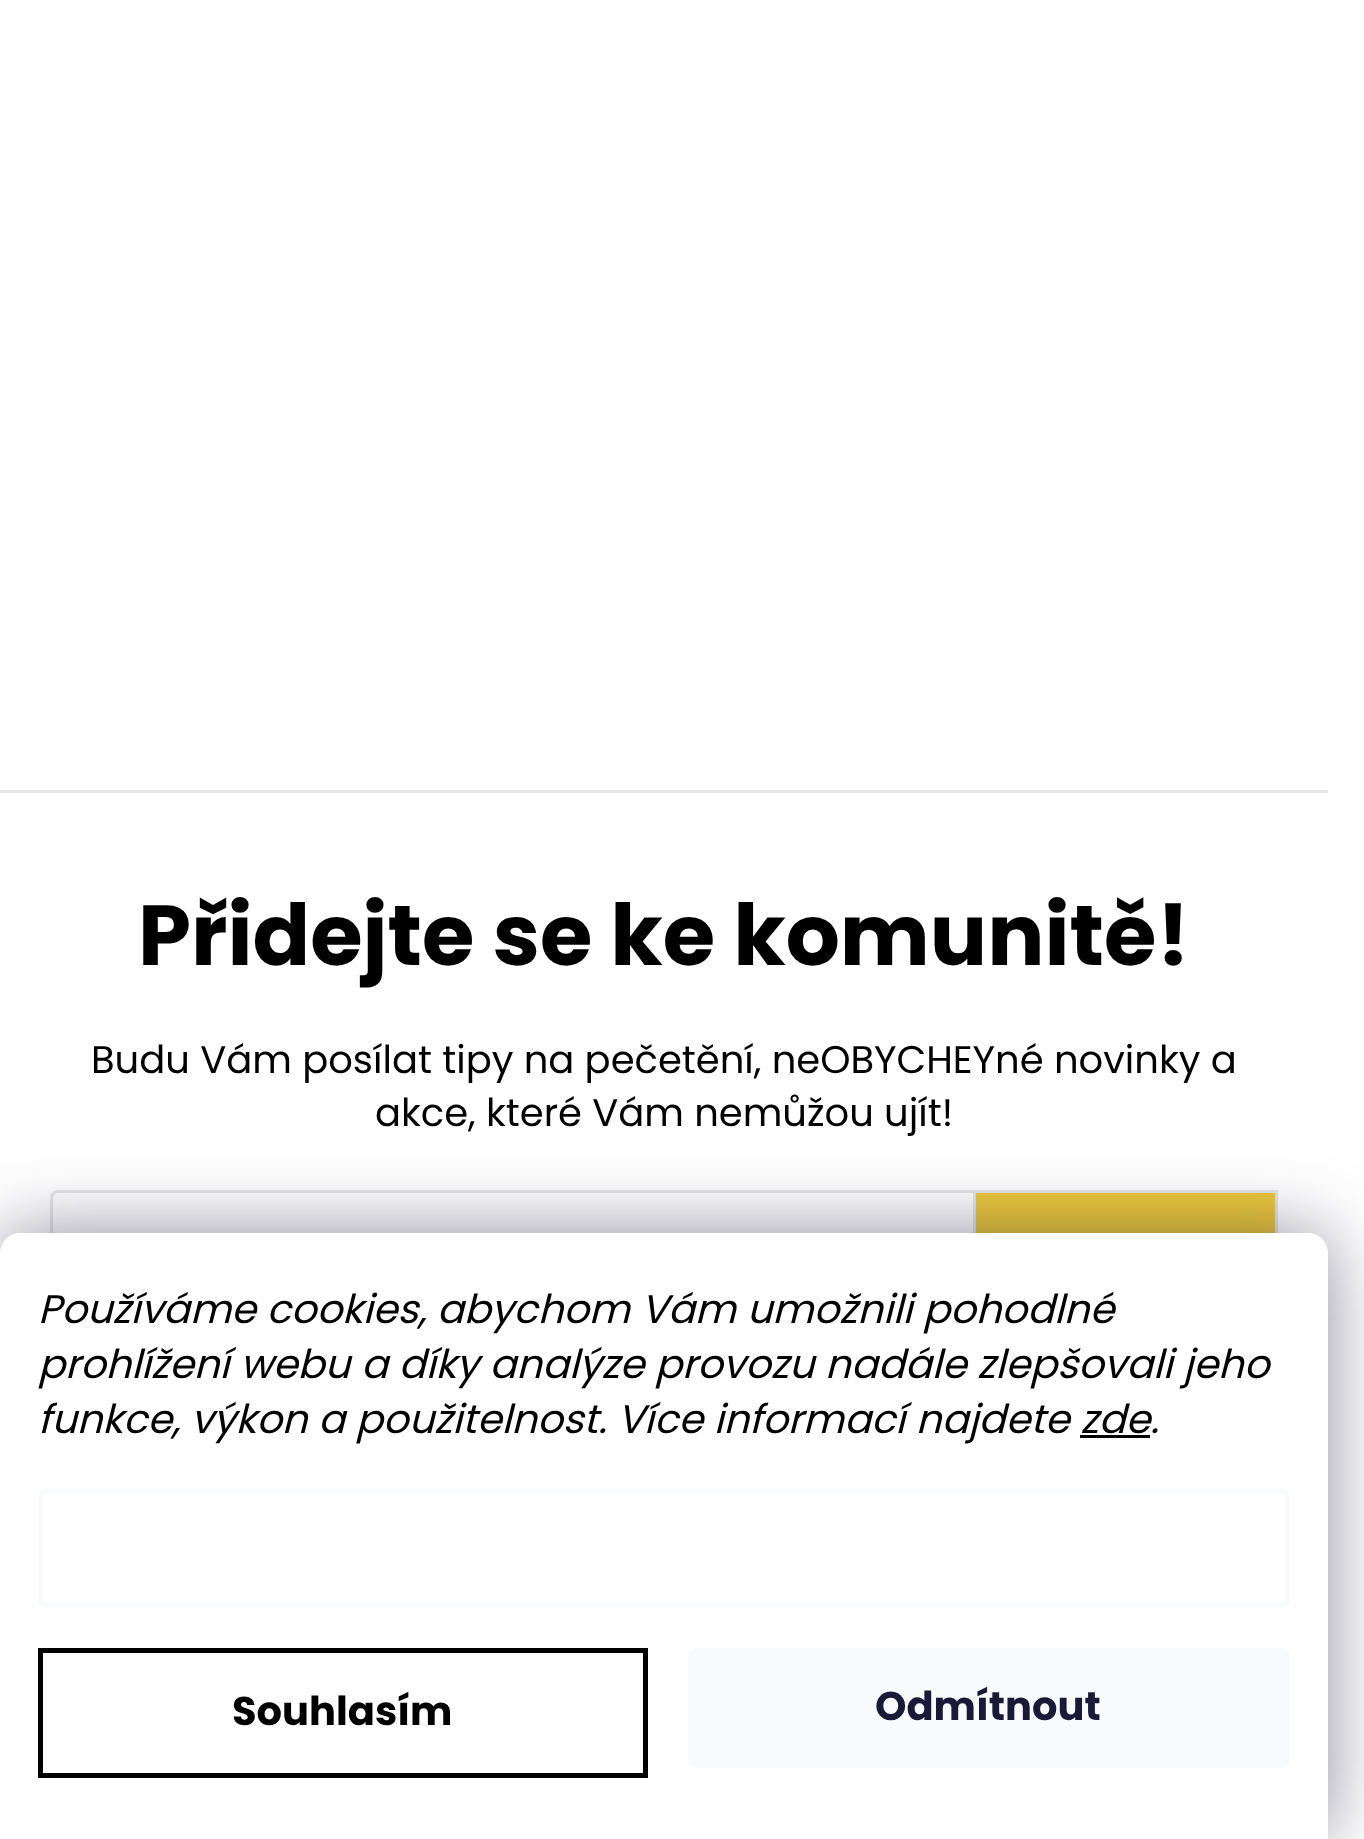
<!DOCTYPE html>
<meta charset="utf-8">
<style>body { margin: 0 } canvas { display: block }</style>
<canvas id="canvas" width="1364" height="1839"></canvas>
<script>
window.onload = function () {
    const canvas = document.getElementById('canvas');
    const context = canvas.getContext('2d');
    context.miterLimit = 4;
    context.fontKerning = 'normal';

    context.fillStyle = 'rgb(255, 255, 255)';
    context.fillRect(0, 0, 1364, 1839);
    context.fillStyle = 'rgb(230, 230, 230)';
    context.fillRect(0, 790, 1328, 3);
    context.beginPath();
    context.roundRect(51.5, 1191.5, 1225, 117, 6.5);
    context.strokeStyle = 'rgb(230, 230, 230)';
    context.lineWidth = 3;
    context.stroke();
    context.fillStyle = 'rgb(237, 201, 59)';
    context.fillRect(976, 1193, 299, 40);
    context.strokeRect(974.5, 1191.5, 302, 117);
    context.fillStyle = 'rgb(255, 255, 255)';
    context.fillRect(50, 1233, 1228, 20);
    context.fillStyle = 'rgba(27, 25, 57, 0.5)';
    context.filter = 'blur(37.5px)';
    context.beginPath();
    context.roundRect(0, 1233, 1328, 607, 20);
    context.fill();
    context.filter = 'none';
    context.fillStyle = 'rgb(255, 255, 255)';
    context.beginPath();
    context.moveTo(20, 1233);
    context.lineTo(1308, 1233);
    context.bezierCurveTo(1319, 1233, 1328, 1242, 1328, 1253);
    context.lineTo(1328, 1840);
    context.lineTo(0, 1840);
    context.lineTo(0, 1253);
    context.bezierCurveTo(0, 1242, 9, 1233, 20, 1233);
    context.closePath();
    context.fill();
    context.fillStyle = 'rgb(0, 0, 0)';
    context.fillRect(1080, 1435, 70, 3);
    context.beginPath();
    context.roundRect(40.5, 1490.5, 1247, 115, 7.5);
    context.strokeStyle = 'rgb(248, 250, 251)';
    context.lineWidth = 5;
    context.stroke();
    context.strokeStyle = 'rgb(0, 0, 0)';
    context.strokeRect(40.5, 1650.5, 605, 125);
    context.fillStyle = 'rgb(248, 250, 251)';
    context.beginPath();
    context.roundRect(688, 1648, 602, 120, 10);
    context.fill();
    context.font = 'bold 85px Poppins';
    context.fillStyle = 'rgb(0, 0, 0)';
    context.fillText('Přidejte se ke komunitě!', 138, 965);
    context.font = '38.5px Poppins';
    context.fillText('Budu Vám posílat tipy na pečetění, neOBYCHEYné novinky a', 91, 1073);
    context.fillText('akce, které Vám nemůžou ujít!', 375, 1126);
    context.font = 'italic 40px Poppins';
    context.fillText('Používáme cookies, abychom Vám umožnili pohodlné', 38, 1323);
    context.fillText('prohlížení webu a díky analýze provozu nadále zlepšovali jeho', 38, 1378);
    context.fillText('funkce, výkon a použitelnost. Více informací najdete zde.', 38, 1433);
    context.font = 'bold 40px Poppins';
    context.fillText('Souhlasím', 232, 1725);
    context.fillStyle = 'rgb(26, 25, 55)';
    context.fillText('Odmítnout', 875, 1720);
};
</script>
